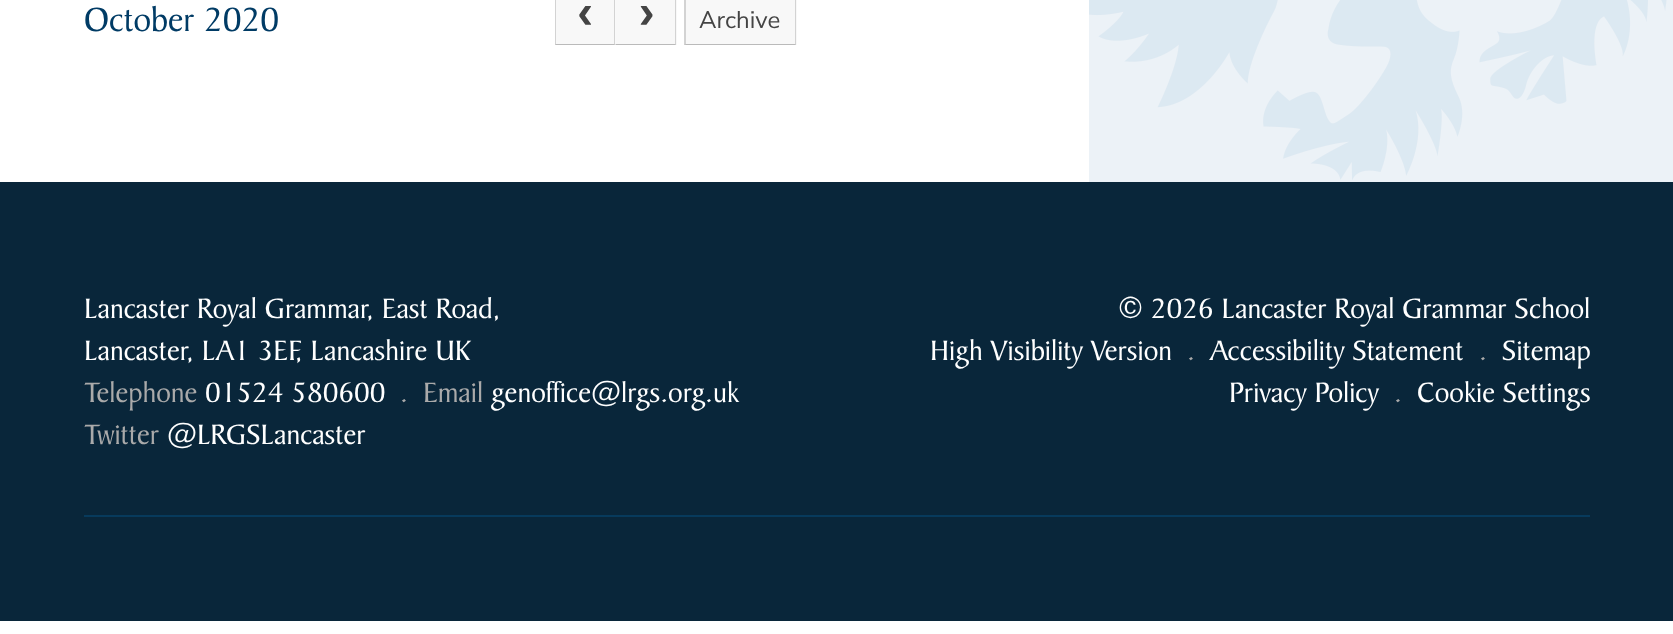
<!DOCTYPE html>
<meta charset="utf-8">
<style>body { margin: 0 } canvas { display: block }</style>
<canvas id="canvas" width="1673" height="634"></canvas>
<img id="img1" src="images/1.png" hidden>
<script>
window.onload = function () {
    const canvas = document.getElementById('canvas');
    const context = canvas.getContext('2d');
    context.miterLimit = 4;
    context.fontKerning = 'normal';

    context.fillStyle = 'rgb(255, 255, 255)';
    context.fillRect(0, 0, 1673, 634);
    context.fillStyle = 'rgb(248, 248, 248)';
    context.fillRect(555, 0, 122, 45);
    context.fillStyle = 'rgb(211, 211, 211)';
    context.beginPath();
    context.moveTo(615, -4);
    context.lineTo(615, 45);
    context.lineTo(614, 44);
    context.lineTo(614, -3);
    context.closePath();
    context.fill();
    context.fillStyle = 'rgba(0, 0, 0, 0.25)';
    context.beginPath();
    context.moveTo(615, 45);
    context.lineTo(555, 45);
    context.lineTo(556, 44);
    context.lineTo(614, 44);
    context.closePath();
    context.fill();
    context.fillStyle = 'rgba(0, 0, 0, 0.15)';
    context.beginPath();
    context.moveTo(555, 45);
    context.lineTo(555, -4);
    context.lineTo(556, -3);
    context.lineTo(556, 44);
    context.closePath();
    context.fill();
    context.fillStyle = 'rgb(211, 211, 211)';
    context.beginPath();
    context.moveTo(676, -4);
    context.lineTo(676, 45);
    context.lineTo(675, 44);
    context.lineTo(675, -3);
    context.closePath();
    context.fill();
    context.fillStyle = 'rgba(0, 0, 0, 0.25)';
    context.beginPath();
    context.moveTo(676, 45);
    context.lineTo(615, 45);
    context.lineTo(616, 44);
    context.lineTo(675, 44);
    context.closePath();
    context.fill();
    context.fillStyle = 'rgba(255, 255, 255, 0.15)';
    context.beginPath();
    context.moveTo(615, 45);
    context.lineTo(615, -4);
    context.lineTo(616, -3);
    context.lineTo(616, 44);
    context.closePath();
    context.fill();
    context.fillStyle = 'rgb(248, 248, 248)';
    context.fillRect(684, 0, 113, 45);
    context.fillStyle = 'rgb(211, 211, 211)';
    context.beginPath();
    context.moveTo(796, -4);
    context.lineTo(796, 45);
    context.lineTo(795, 44);
    context.lineTo(795, -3);
    context.closePath();
    context.fill();
    context.fillStyle = 'rgba(0, 0, 0, 0.25)';
    context.beginPath();
    context.moveTo(796, 45);
    context.lineTo(684, 45);
    context.lineTo(686, 44);
    context.lineTo(795, 44);
    context.closePath();
    context.fill();
    context.fillStyle = 'rgba(0, 0, 0, 0.15)';
    context.beginPath();
    context.moveTo(684, 45);
    context.lineTo(684, -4);
    context.lineTo(686, -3);
    context.lineTo(686, 44);
    context.closePath();
    context.fill();
    context.fillStyle = 'rgb(236, 242, 247)';
    context.fillRect(1089, 0, 584, 182);
    context.drawImage(document.getElementById('img1'), 1089, 0, 578, 180);
    context.fillStyle = 'rgb(9, 38, 58)';
    context.fillRect(0, 182, 1673, 439);
    context.fillStyle = 'rgb(7, 58, 92)';
    context.fillRect(84, 515, 1506, 2);
    context.font = '36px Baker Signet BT';
    context.fillStyle = 'rgb(0, 59, 101)';
    context.fillText('October 2020', 84, 31);
    context.font = 'bold 48px Liberation Mono';
    context.fillStyle = 'rgb(68, 68, 68)';
    context.fillText('‹', 571, 28);
    context.fillText('›', 632, 28);
    context.font = '24px Nunito Sans';
    context.fillText('Archive', 699, 28);
    context.font = '30px Baker Signet BT';
    context.fillStyle = 'rgb(255, 255, 255)';
    context.fillText('Lancaster Royal Grammar, East Road,', 84, 318);
    context.fillText('Lancaster, LA1 3EF, Lancashire UK', 84, 360);
    context.fillStyle = 'rgb(170, 170, 170)';
    context.fillText('Telephone', 84, 402);
    context.fillStyle = 'rgb(255, 255, 255)';
    context.fillText('01524 580600', 205, 402);
    context.fillStyle = 'rgb(170, 170, 170)';
    context.fillText('.', 400, 402);
    context.fillText('Email', 423, 402);
    context.fillStyle = 'rgb(255, 255, 255)';
    context.fillText('genoffice@lrgs.org.uk', 491, 402);
    context.fillStyle = 'rgb(170, 170, 170)';
    context.fillText('Twitter', 84, 444);
    context.fillStyle = 'rgb(255, 255, 255)';
    context.fillText('@LRGSLancaster', 167, 444);
    context.fillText('© 2026 Lancaster Royal Grammar School', 1118, 318);
    context.fillText('High Visibility Version', 930, 360);
    context.fillStyle = 'rgb(170, 170, 170)';
    context.fillText('.', 1187, 360);
    context.fillStyle = 'rgb(255, 255, 255)';
    context.fillText('Accessibility Statement', 1210, 360);
    context.fillStyle = 'rgb(170, 170, 170)';
    context.fillText('.', 1479, 360);
    context.fillStyle = 'rgb(255, 255, 255)';
    context.fillText('Sitemap', 1502, 360);
    context.fillText('Privacy Policy', 1229, 402);
    context.fillStyle = 'rgb(170, 170, 170)';
    context.fillText('.', 1394, 402);
    context.fillStyle = 'rgb(255, 255, 255)';
    context.fillText('Cookie Settings', 1417, 402);
};
</script>
